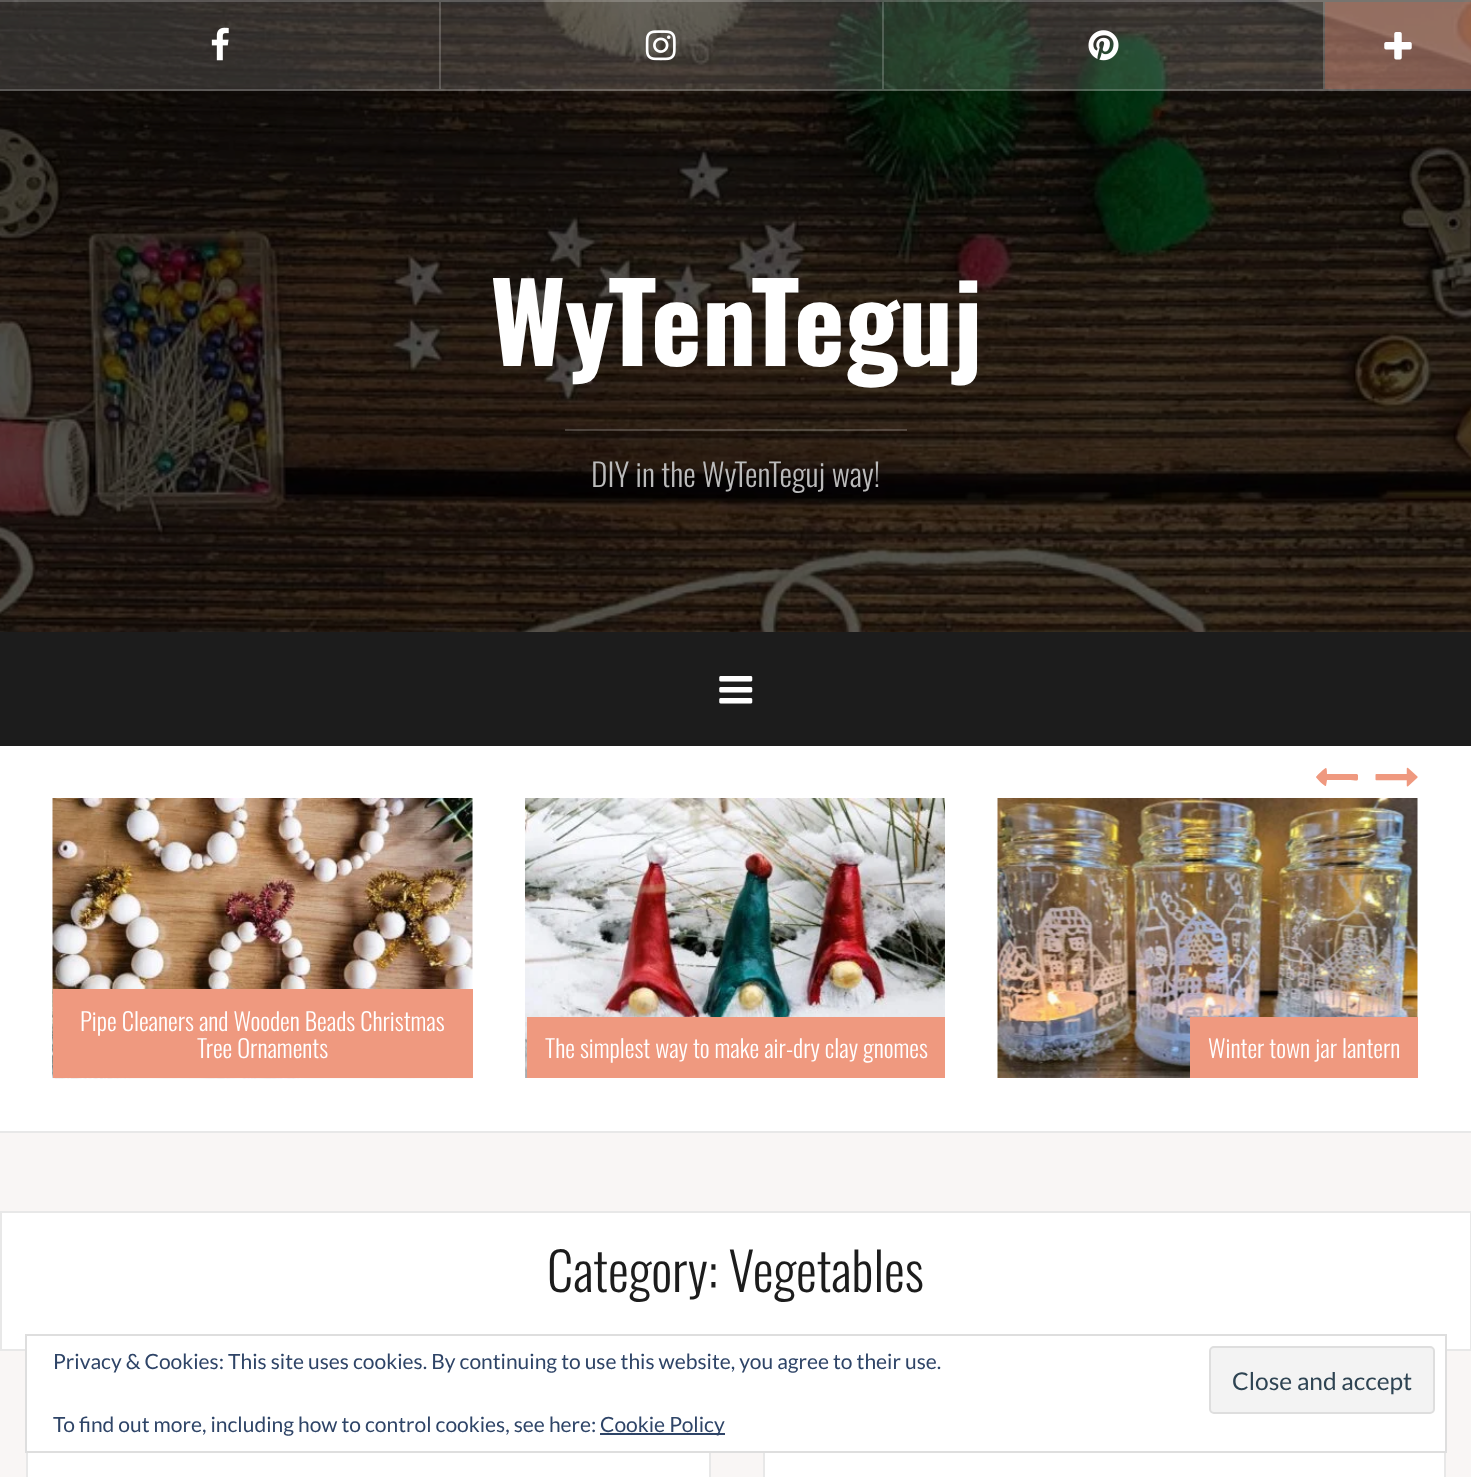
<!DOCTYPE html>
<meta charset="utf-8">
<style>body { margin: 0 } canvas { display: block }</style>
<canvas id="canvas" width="1471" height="1477"></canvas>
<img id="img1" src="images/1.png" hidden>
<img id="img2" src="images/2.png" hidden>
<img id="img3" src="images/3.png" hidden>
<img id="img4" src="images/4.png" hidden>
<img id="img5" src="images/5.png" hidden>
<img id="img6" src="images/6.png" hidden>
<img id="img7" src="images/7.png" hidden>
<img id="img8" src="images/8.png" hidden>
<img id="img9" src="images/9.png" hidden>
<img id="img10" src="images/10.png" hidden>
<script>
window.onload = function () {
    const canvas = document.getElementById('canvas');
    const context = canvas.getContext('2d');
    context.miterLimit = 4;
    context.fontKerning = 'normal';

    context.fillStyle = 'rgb(249, 246, 245)';
    context.fillRect(0, 0, 1471, 1477);
    context.drawImage(document.getElementById('img1'), 0, 0, 1471, 632);
    context.fillStyle = 'rgba(255, 255, 255, 0.15)';
    context.fillRect(0, 0, 1471, 91);
    context.fillStyle = 'rgba(255, 255, 255, 0.2)';
    context.fillRect(0, 0, 1471, 2);
    context.fillRect(0, 89, 1471, 2);
    context.fillRect(439, 2, 2, 87);
    context.drawImage(document.getElementById('img2'), 211, 27, 18, 34);
    context.fillRect(882, 2, 2, 87);
    context.drawImage(document.getElementById('img3'), 645, 30, 31, 31);
    context.fillRect(1323, 2, 2, 87);
    context.drawImage(document.getElementById('img4'), 1088, 30, 31, 31);
    context.fillStyle = 'rgba(239, 153, 127, 0.4)';
    context.fillRect(1325, 2, 146, 87);
    context.drawImage(document.getElementById('img5'), 1384, 32, 28, 28);
    context.fillStyle = 'rgba(255, 255, 255, 0.2)';
    context.fillRect(565, 429, 342, 2);
    context.fillStyle = 'rgb(28, 28, 28)';
    context.fillRect(0, 632, 1471, 114);
    context.drawImage(document.getElementById('img6'), 719, 676, 34, 28);
    context.fillStyle = 'rgb(255, 255, 255)';
    context.fillRect(0, 746, 1471, 385);
    context.fillStyle = 'rgb(232, 232, 232)';
    context.fillRect(0, 1131, 1471, 2);
    context.fillStyle = 'rgb(239, 153, 127)';
    context.beginPath();
    context.moveTo(1358, 775);
    context.bezierCurveTo(1358, 783, 1359, 780, 1347, 780);
    context.lineTo(1327, 780);
    context.lineTo(1326, 786);
    context.bezierCurveTo(1325, 787, 1316, 778, 1316, 777);
    context.bezierCurveTo(1316, 776, 1326, 767, 1326, 768);
    context.bezierCurveTo(1327, 768, 1327, 773, 1327, 774);
    context.lineTo(1357, 774);
    context.closePath();
    context.fill();
    context.drawImage(document.getElementById('img7'), 1375, 767, 43, 20);
    context.drawImage(document.getElementById('img8'), 52, 798, 421, 281);
    context.fillRect(53, 989, 420, 89);
    context.drawImage(document.getElementById('img9'), 525, 798, 420, 280);
    context.fillRect(527, 1017, 418, 61);
    context.drawImage(document.getElementById('img10'), 997, 798, 421, 280);
    context.fillRect(1190, 1017, 228, 61);
    context.fillStyle = 'rgb(255, 255, 255)';
    context.beginPath();
    context.rect(1, 1212, 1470, 138);
    context.fill();
    context.strokeStyle = 'rgb(232, 232, 232)';
    context.lineWidth = 2;
    context.stroke();
    context.fillRect(28, 1453, 681, 24);
    context.strokeRect(27, 1431, 683, 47);
    context.fillRect(765, 1453, 679, 24);
    context.strokeRect(764, 1431, 681, 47);
    context.fillRect(27, 1349, 1418, 102);
    context.strokeStyle = 'rgb(222, 222, 222)';
    context.strokeRect(26, 1335, 1420, 117);
    context.fillStyle = 'rgb(243, 243, 243)';
    context.beginPath();
    context.roundRect(1210, 1347, 224, 66, 4);
    context.fill();
    context.stroke();
    context.fillStyle = 'rgb(46, 68, 103)';
    context.fillRect(600, 1433, 125, 2);
    context.font = 'bold 108.5px Oswald';
    context.fillStyle = 'rgb(255, 255, 255)';
    context.fillText('WyTenTeguj', 490, 366);
    context.font = '300 31.5px Oswald';
    context.fillStyle = 'rgb(187, 187, 187)';
    context.fillText('DIY in the WyTenTeguj way!', 591, 487);
    context.font = '300 24.5px Oswald';
    context.fillStyle = 'rgb(255, 255, 255)';
    context.fillText('Pipe Cleaners and Wooden Beads Christmas', 80, 1031);
    context.fillText('Tree Ornaments', 197, 1058);
    context.fillText('The simplest way to make air-dry clay gnomes', 545, 1058);
    context.fillText('Winter town jar lantern', 1208, 1058);
    context.font = '300 52.5px Oswald';
    context.fillStyle = 'rgb(28, 28, 28)';
    context.fillText('Category: Vegetables', 547, 1292);
    context.font = '21px Lato';
    context.fillStyle = 'rgb(46, 68, 103)';
    context.fillText('Privacy & Cookies: This site uses cookies. By continuing to use this website, you agree to their use.', 53, 1369);
    context.font = '24.5px Lato';
    context.fillStyle = 'rgb(46, 68, 83)';
    context.fillText('Close and accept', 1232, 1390);
    context.font = '21px Lato';
    context.fillStyle = 'rgb(46, 68, 103)';
    context.fillText('To find out more, including how to control cookies, see here:', 53, 1432);
    context.fillText('Cookie Policy', 600, 1432);
};
</script>
